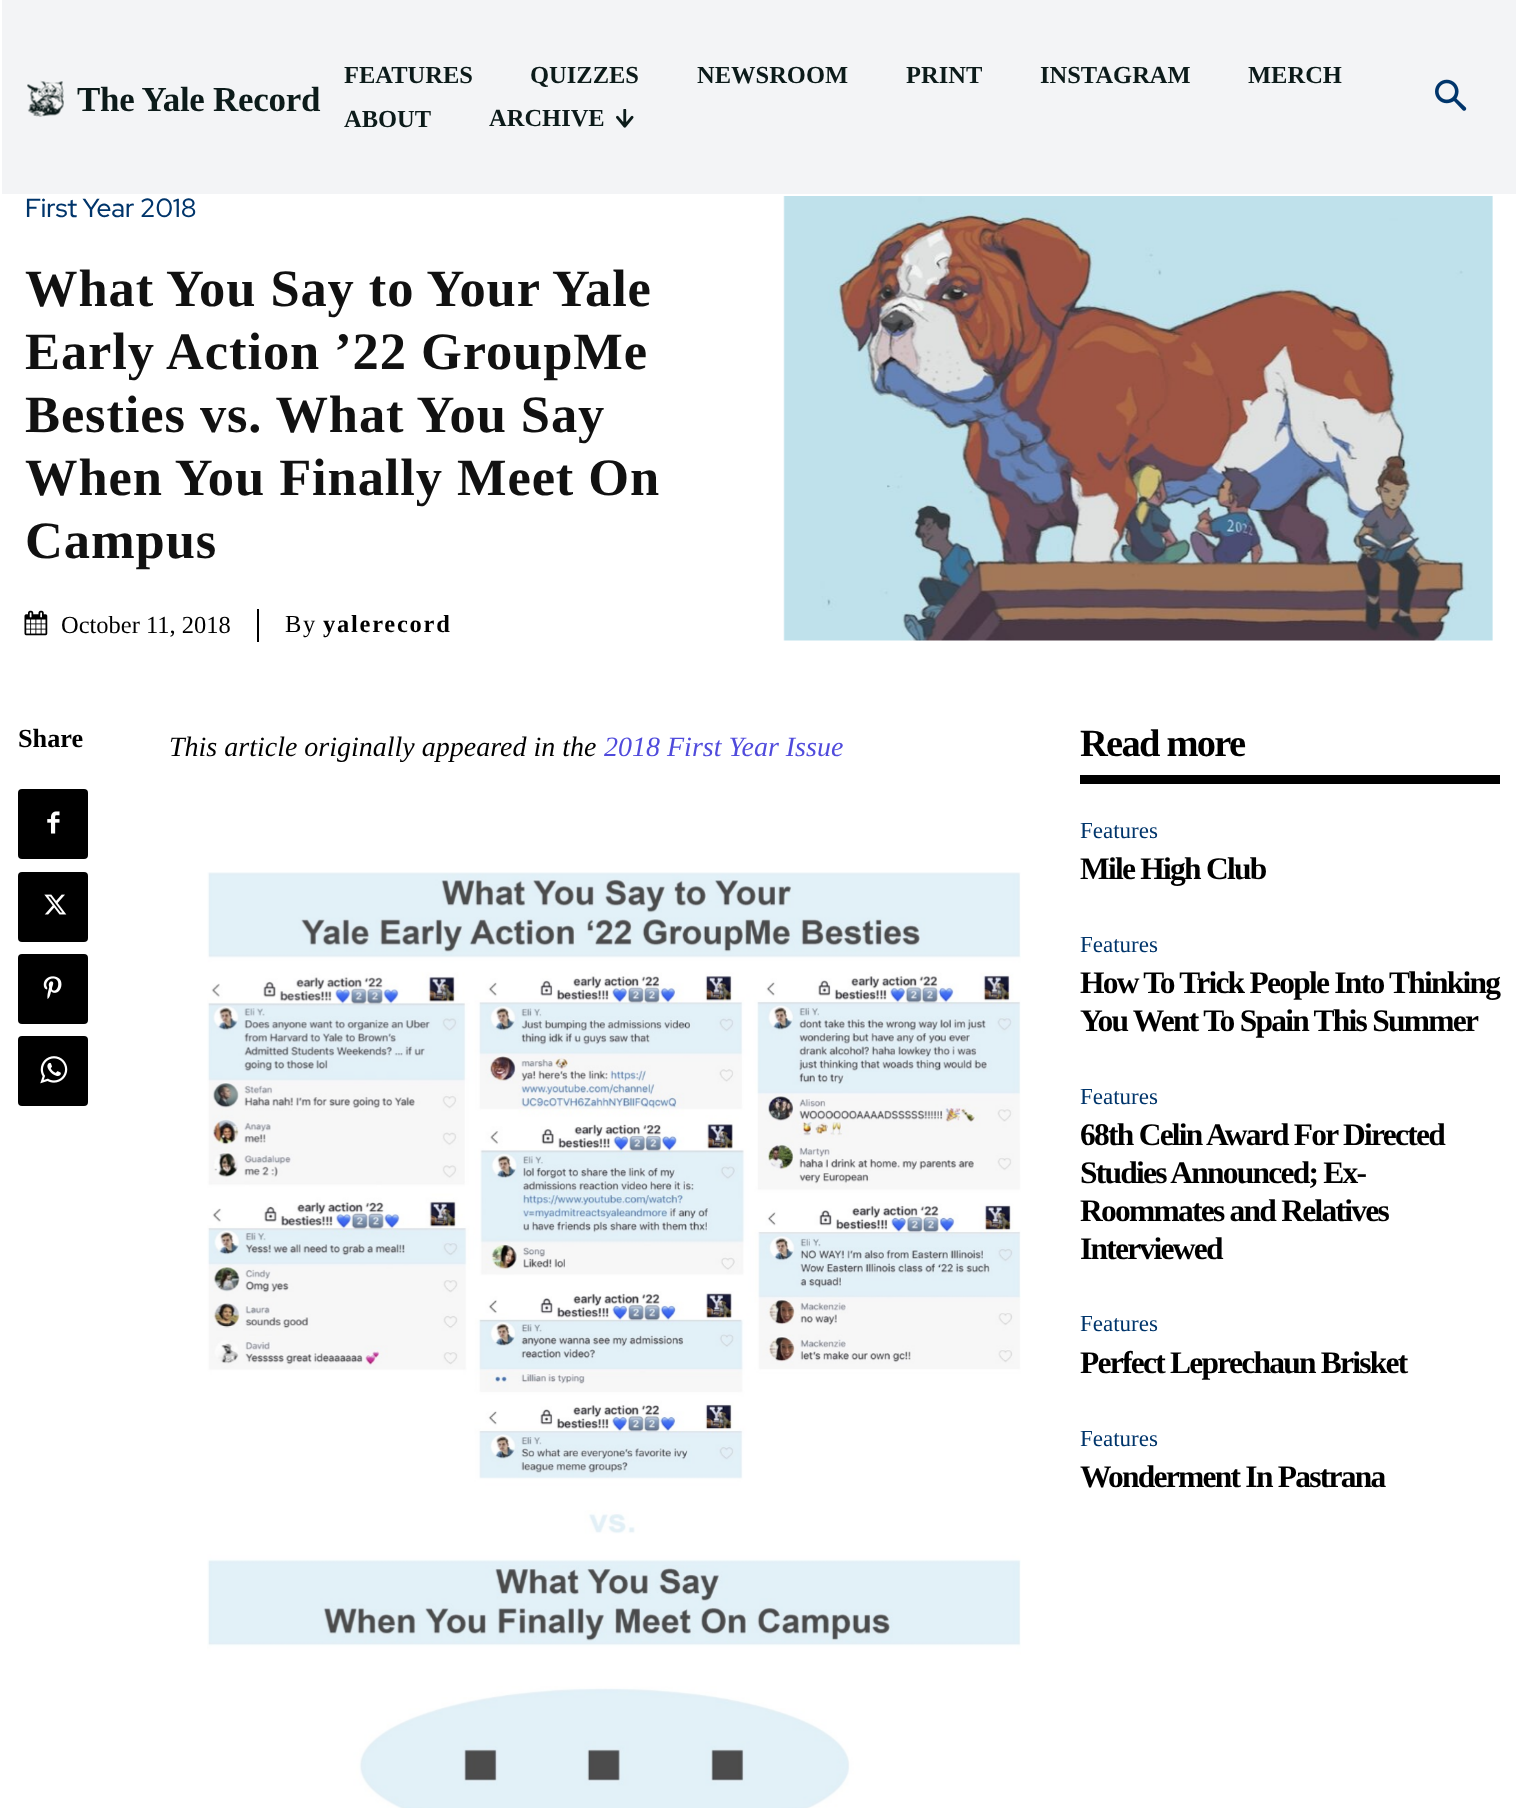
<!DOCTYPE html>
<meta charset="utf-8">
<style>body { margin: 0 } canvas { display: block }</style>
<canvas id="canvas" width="1516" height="1808"></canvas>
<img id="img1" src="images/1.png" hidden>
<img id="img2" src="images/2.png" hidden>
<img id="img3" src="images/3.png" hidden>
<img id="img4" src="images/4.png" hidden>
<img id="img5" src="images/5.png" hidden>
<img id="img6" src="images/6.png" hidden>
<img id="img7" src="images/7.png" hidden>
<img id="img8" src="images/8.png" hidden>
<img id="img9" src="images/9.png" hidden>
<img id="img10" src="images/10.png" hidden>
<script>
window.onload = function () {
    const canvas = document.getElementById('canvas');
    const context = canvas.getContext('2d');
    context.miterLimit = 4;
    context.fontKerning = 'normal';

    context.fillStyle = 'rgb(255, 255, 255)';
    context.fillRect(0, 0, 1516, 1808);
    context.fillStyle = 'rgb(243, 244, 246)';
    context.fillRect(2, 0, 1514, 194);
    context.drawImage(document.getElementById('img1'), 27, 80, 37, 37);
    context.drawImage(document.getElementById('img2'), 616, 109, 18, 19);
    context.drawImage(document.getElementById('img3'), 1435, 79, 32, 32);
    context.drawImage(document.getElementById('img4'), 24, 610, 24, 26);
    context.fillStyle = 'rgb(0, 0, 0)';
    context.fillRect(257, 609, 2, 33);
    context.drawImage(document.getElementById('img5'), 783, 196, 710, 445);
    context.beginPath();
    context.roundRect(18, 789, 70, 70, 4);
    context.fill();
    context.drawImage(document.getElementById('img6'), 47, 811, 13, 23);
    context.beginPath();
    context.roundRect(18, 872, 70, 70, 4);
    context.fill();
    context.drawImage(document.getElementById('img7'), 44, 894, 23, 21);
    context.beginPath();
    context.roundRect(18, 954, 70, 70, 4);
    context.fill();
    context.drawImage(document.getElementById('img8'), 43, 976, 19, 23);
    context.beginPath();
    context.roundRect(18, 1036, 70, 70, 4);
    context.fill();
    context.drawImage(document.getElementById('img9'), 40, 1056, 28, 28);
    context.drawImage(document.getElementById('img10'), 207, 872, 814, 936);
    context.fillRect(1080, 775, 420, 9);
    context.letterSpacing = '-0.3px';
    context.font = 'bold 35px Liberation Serif';
    context.fillStyle = 'rgb(12, 27, 26)';
    context.fillText('The Yale Record', 77, 111);
    context.letterSpacing = '0px';
    context.font = 'bold 24.5px Liberation Serif';
    context.fillText('FEATURES', 344, 83);
    context.fillText('QUIZZES', 530, 83);
    context.fillText('NEWSROOM', 697, 83);
    context.fillText('PRINT', 906, 83);
    context.fillText('INSTAGRAM', 1040, 83);
    context.fillText('MERCH', 1248, 83);
    context.fillText('ABOUT', 344, 127);
    context.fillText('ARCHIVE', 489, 126);
    context.font = '500 26.25px Red Hat Display';
    context.fillStyle = 'rgb(0, 53, 107)';
    context.fillText('First Year 2018', 25, 217);
    context.letterSpacing = '0.9px';
    context.font = 'bold 52.5px Liberation Serif';
    context.fillStyle = 'rgb(17, 17, 17)';
    context.fillText('What You Say to Your Yale', 25, 306);
    context.fillText('Early Action ’22 GroupMe', 25, 369);
    context.fillText('Besties vs. What You Say', 25, 432);
    context.fillText('When You Finally Meet On', 25, 495);
    context.fillText('Campus', 25, 558);
    context.letterSpacing = '0px';
    context.font = '24.5px Liberation Serif';
    context.fillStyle = 'rgb(0, 0, 0)';
    context.fillText('October 11, 2018', 61, 633);
    context.letterSpacing = '1.75px';
    context.fillText('By', 285, 632);
    context.font = 'bold 24.5px Liberation Serif';
    context.fillText('yalerecord', 323, 632);
    context.letterSpacing = '0px';
    context.font = 'bold 26.25px Liberation Serif';
    context.fillText('Share', 18, 747);
    context.font = 'italic 28px Liberation Serif';
    context.fillText('This article originally appeared in the', 169, 756);
    context.fillStyle = 'rgb(80, 75, 220)';
    context.fillText('2018 First Year Issue', 604, 756);
    context.letterSpacing = '-1.75px';
    context.font = 'bold 38.5px Liberation Serif';
    context.fillStyle = 'rgb(0, 0, 0)';
    context.fillText('Read more', 1080, 756);
    context.letterSpacing = '0px';
    context.font = '23px Liberation Serif';
    context.fillStyle = 'rgb(0, 53, 107)';
    context.fillText('Features', 1080, 838);
    context.letterSpacing = '-1.75px';
    context.font = 'bold 31.5px Liberation Serif';
    context.fillStyle = 'rgb(0, 0, 0)';
    context.fillText('Mile High Club', 1080, 879);
    context.letterSpacing = '0px';
    context.font = '23px Liberation Serif';
    context.fillStyle = 'rgb(0, 53, 107)';
    context.fillText('Features', 1080, 952);
    context.letterSpacing = '-1.75px';
    context.font = 'bold 31.5px Liberation Serif';
    context.fillStyle = 'rgb(0, 0, 0)';
    context.fillText('How To Trick People Into Thinking', 1080, 993);
    context.fillText('You Went To Spain This Summer', 1080, 1031);
    context.letterSpacing = '0px';
    context.font = '23px Liberation Serif';
    context.fillStyle = 'rgb(0, 53, 107)';
    context.fillText('Features', 1080, 1104);
    context.letterSpacing = '-1.75px';
    context.font = 'bold 31.5px Liberation Serif';
    context.fillStyle = 'rgb(0, 0, 0)';
    context.fillText('68th Celin Award For Directed', 1080, 1145);
    context.fillText('Studies Announced; Ex-', 1080, 1183);
    context.fillText('Roommates and Relatives', 1080, 1221);
    context.fillText('Interviewed', 1080, 1259);
    context.letterSpacing = '0px';
    context.font = '23px Liberation Serif';
    context.fillStyle = 'rgb(0, 53, 107)';
    context.fillText('Features', 1080, 1331);
    context.letterSpacing = '-1.75px';
    context.font = 'bold 31.5px Liberation Serif';
    context.fillStyle = 'rgb(0, 0, 0)';
    context.fillText('Perfect Leprechaun Brisket', 1080, 1373);
    context.letterSpacing = '0px';
    context.font = '23px Liberation Serif';
    context.fillStyle = 'rgb(0, 53, 107)';
    context.fillText('Features', 1080, 1446);
    context.letterSpacing = '-1.75px';
    context.font = 'bold 31.5px Liberation Serif';
    context.fillStyle = 'rgb(0, 0, 0)';
    context.fillText('Wonderment In Pastrana', 1080, 1487);
};
</script>
